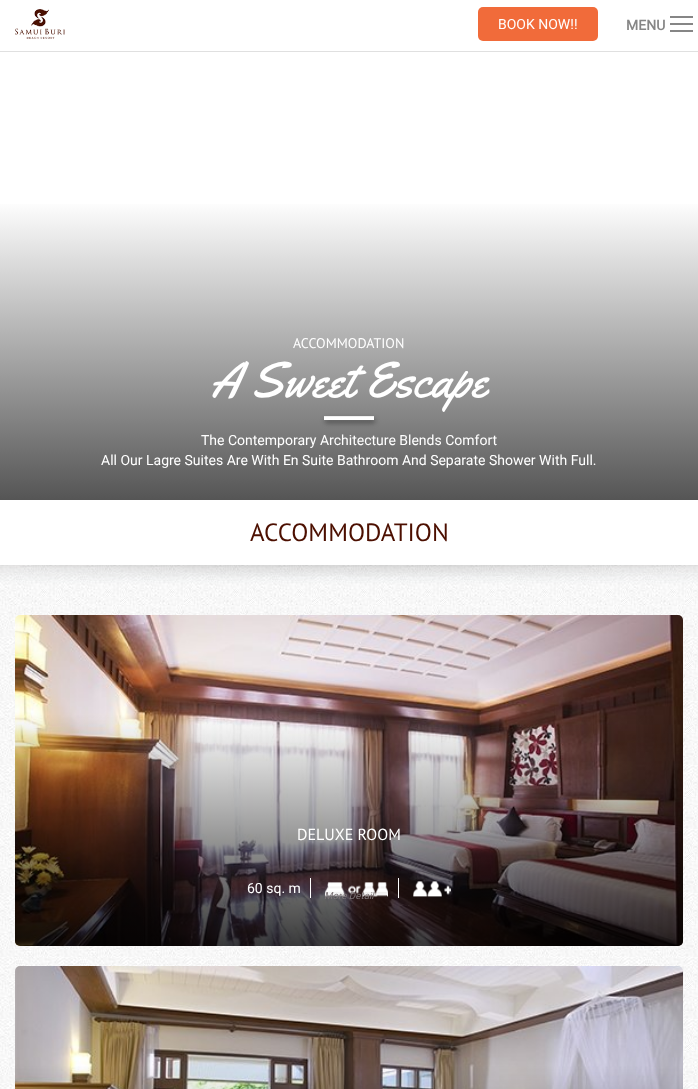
<!DOCTYPE html>
<meta charset="utf-8">
<style>body { margin: 0 } canvas { display: block }</style>
<canvas id="canvas" width="698" height="1089"></canvas>
<img id="img1" src="images/1.png" hidden>
<img id="img2" src="images/3.png" hidden>
<img id="img3" src="images/2.png" hidden>
<img id="img4" src="images/4.png" hidden>
<img id="img5" src="images/5.png" hidden>
<img id="img6" src="images/6.png" hidden>
<img id="img7" src="images/7.png" hidden>
<script>
window.onload = function () {
    const canvas = document.getElementById('canvas');
    const context = canvas.getContext('2d');
    context.miterLimit = 4;
    context.fontKerning = 'normal';
    let gradient;

    context.fillStyle = 'rgb(255, 255, 255)';
    context.fillRect(0, 0, 698, 1089);
    context.fillStyle = 'rgb(241, 107, 58)';
    context.beginPath();
    context.roundRect(478, 7, 120, 34, 5);
    context.fill();
    context.fillStyle = 'rgb(224, 224, 224)';
    context.fillRect(0, 51, 698, 1);
    context.drawImage(document.getElementById('img1'), 15, 9, 50, 30);
    context.fillStyle = 'rgb(134, 134, 134)';
    context.fillRect(670, 23, 23, 2);
    context.fillRect(670, 16, 23, 2);
    context.fillRect(670, 30, 23, 2);
    gradient = context.createLinearGradient(349, 200, 349, 650);
    gradient.addColorStop(0, 'rgb(255, 255, 255)');
    gradient.addColorStop(1, 'rgb(0, 0, 0)');
    context.fillStyle = gradient;
    context.fillRect(0, 204, 698, 296);
    context.fillStyle = 'rgba(56, 56, 56, 0.7)';
    context.filter = 'blur(2.5px)';
    context.beginPath();
    context.rect(325, 419, 50, 4);
    context.fill();
    context.filter = 'none';
    context.fillStyle = 'rgb(255, 255, 255)';
    context.fillRect(324, 417, 50, 3);
    context.fillStyle = 'rgb(238, 238, 238)';
    context.fillRect(324, 416, 50, 1);
    context.drawImage(document.getElementById('img2'), 0, 565, 698, 524);
    context.drawImage(document.getElementById('img3'), 0, 565, 698, 18);
    context.drawImage(document.getElementById('img4'), 15, 615, 668, 331);
    gradient = context.createLinearGradient(349, 714, 349, 1016);
    gradient.addColorStop(0, 'rgba(0, 0, 0, 0)');
    gradient.addColorStop(1, 'rgb(0, 0, 0)');
    context.fillStyle = gradient;
    context.beginPath();
    context.roundRect(15, 714, 668, 232, [0, 0, 5, 5]);
    context.fill();
    context.fillStyle = 'rgb(255, 255, 255)';
    context.fillRect(310, 878, 1, 20);
    context.fillRect(398, 878, 1, 20);
    context.drawImage(document.getElementById('img5'), 325, 882, 63, 15);
    context.drawImage(document.getElementById('img6'), 413, 881, 38, 16);
    context.drawImage(document.getElementById('img7'), 15, 966, 668, 123);
    context.font = '14px Roboto';
    context.fillText('BOOK NOW!!', 498, 29);
    context.font = 'bold 14px Roboto';
    context.fillStyle = 'rgb(134, 134, 134)';
    context.fillText('MENU', 626, 30);
    context.font = '14px PT Sans';
    context.fillStyle = 'rgb(255, 255, 255)';
    context.fillText('ACCOMMODATION', 293, 348);
    context.font = '50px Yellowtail';
    context.fillText('A Sweet Escape', 211, 397);
    context.font = '14px Roboto';
    context.fillText('The Contemporary Architecture Blends Comfort', 201, 445);
    context.fillText('All Our Lagre Suites Are With En Suite Bathroom And Separate Shower With Full.', 101, 465);
    context.font = '25px PT Sans';
    context.fillStyle = 'rgb(76, 15, 0)';
    context.fillText('ACCOMMODATION', 250, 541);
    context.font = '16px PT Sans';
    context.fillStyle = 'rgb(255, 255, 255)';
    context.fillText('DELUXE ROOM', 297, 840);
    context.font = '14px Roboto';
    context.fillText('60 sq. m', 247, 893);
    context.font = 'italic 9.75px Roboto';
    context.fillStyle = 'rgb(127, 119, 121)';
    context.fillText('More Detail', 324, 899);
};
</script>
